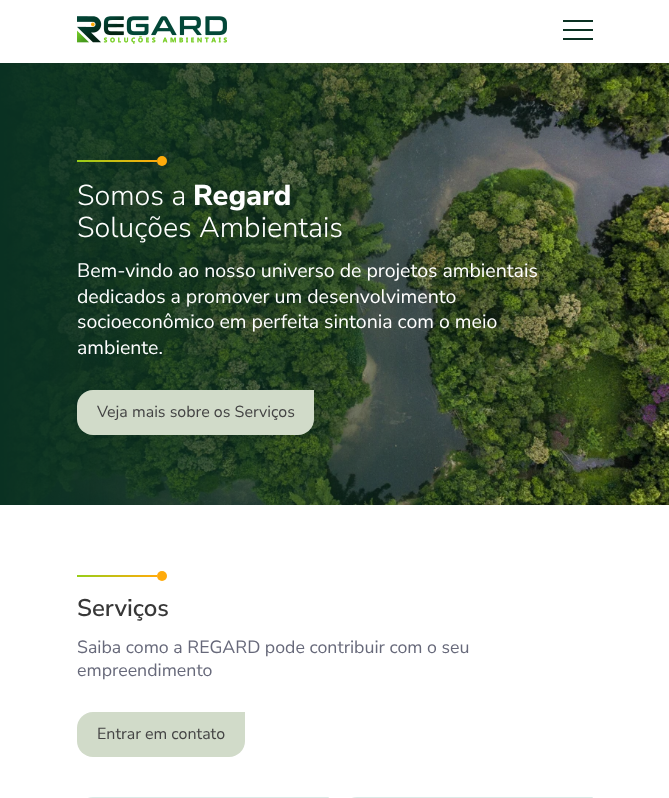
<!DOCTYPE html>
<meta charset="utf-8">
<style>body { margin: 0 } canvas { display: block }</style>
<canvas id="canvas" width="669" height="798"></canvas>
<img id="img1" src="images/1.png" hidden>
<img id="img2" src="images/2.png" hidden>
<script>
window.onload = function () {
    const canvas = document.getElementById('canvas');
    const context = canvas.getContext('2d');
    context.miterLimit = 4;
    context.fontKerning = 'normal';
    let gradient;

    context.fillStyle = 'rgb(255, 255, 255)';
    context.fillRect(0, 0, 669, 798);
    context.drawImage(document.getElementById('img1'), 77, 16, 150, 28);
    context.fillStyle = 'rgb(10, 49, 34)';
    context.fillRect(563, 20, 30, 2);
    context.fillRect(563, 29, 30, 2);
    context.fillRect(563, 38, 30, 2);
    context.drawImage(document.getElementById('img2'), 0, 63, 669, 442);
    gradient = context.createLinearGradient(77, 161, 157, 161);
    gradient.addColorStop(0, 'rgb(151, 206, 25)');
    gradient.addColorStop(1, 'rgb(255, 171, 11)');
    context.fillStyle = gradient;
    context.fillRect(77, 160, 80, 2);
    context.fillStyle = 'rgb(255, 171, 11)';
    context.beginPath();
    context.arc(162, 161, 5, 0, 2 * Math.PI);
    context.fill();
    context.fillStyle = 'rgb(209, 219, 201)';
    context.beginPath();
    context.roundRect(77, 390, 237, 45, [16, 0, 16, 16]);
    context.fill();
    gradient = context.createLinearGradient(77, 576, 157, 576);
    gradient.addColorStop(0, 'rgb(151, 206, 25)');
    gradient.addColorStop(1, 'rgb(255, 171, 11)');
    context.fillStyle = gradient;
    context.fillRect(77, 575, 80, 2);
    context.fillStyle = 'rgb(255, 171, 11)';
    context.beginPath();
    context.arc(162, 576, 5, 0, 2 * Math.PI);
    context.fill();
    context.fillStyle = 'rgb(209, 219, 201)';
    context.beginPath();
    context.roundRect(77, 712, 168, 45, [16, 0, 16, 16]);
    context.fill();
    context.beginPath();
    context.moveTo(93, 797.5);
    context.lineTo(328.5, 797.5);
    context.lineTo(328.5, 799);
    context.bezierCurveTo(328.5, 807.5, 321.5, 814.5, 313, 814.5);
    context.lineTo(93, 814.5);
    context.bezierCurveTo(84.5, 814.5, 77.5, 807.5, 77.5, 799);
    context.lineTo(77.5, 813);
    context.bezierCurveTo(77.5, 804.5, 84.5, 797.5, 93, 797.5);
    context.closePath();
    context.strokeStyle = 'rgb(218, 234, 230)';
    context.stroke();
    context.beginPath();
    context.moveTo(357, 797.5);
    context.lineTo(592.5, 797.5);
    context.lineTo(592.5, 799);
    context.bezierCurveTo(592.5, 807.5, 585.5, 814.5, 577, 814.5);
    context.lineTo(357, 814.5);
    context.bezierCurveTo(348.5, 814.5, 341.5, 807.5, 341.5, 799);
    context.lineTo(341.5, 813);
    context.bezierCurveTo(341.5, 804.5, 348.5, 797.5, 357, 797.5);
    context.closePath();
    context.stroke();
    context.font = '300 28.75px Nunito Sans';
    context.fillStyle = 'rgb(255, 255, 255)';
    context.fillText('Somos a', 77, 205);
    context.font = '800 28.75px Nunito Sans';
    context.fillText('Regard', 193, 205);
    context.font = '300 28.75px Nunito Sans';
    context.fillText('Soluções Ambientais', 77, 237);
    context.font = '19.5px Nunito Sans';
    context.fillText('Bem-vindo ao nosso universo de projetos ambientais', 77, 277);
    context.fillText('dedicados a promover um desenvolvimento', 77, 303);
    context.fillText('socioeconômico em perfeita sintonia com o meio', 77, 328);
    context.fillText('ambiente.', 77, 354);
    context.font = '16px Nunito Sans';
    context.fillStyle = 'rgb(68, 68, 68)';
    context.fillText('Veja mais sobre os Serviços', 97, 417);
    context.font = '600 24px Nunito Sans';
    context.fillStyle = 'rgb(56, 56, 56)';
    context.fillText('Serviços', 77, 616);
    context.font = '17.75px Nunito Sans';
    context.fillStyle = 'rgb(103, 105, 122)';
    context.fillText('Saiba como a REGARD pode contribuir com o seu', 77, 653);
    context.fillText('empreendimento', 77, 676);
    context.font = '16px Nunito Sans';
    context.fillStyle = 'rgb(68, 68, 68)';
    context.fillText('Entrar em contato', 97, 739);
};
</script>
